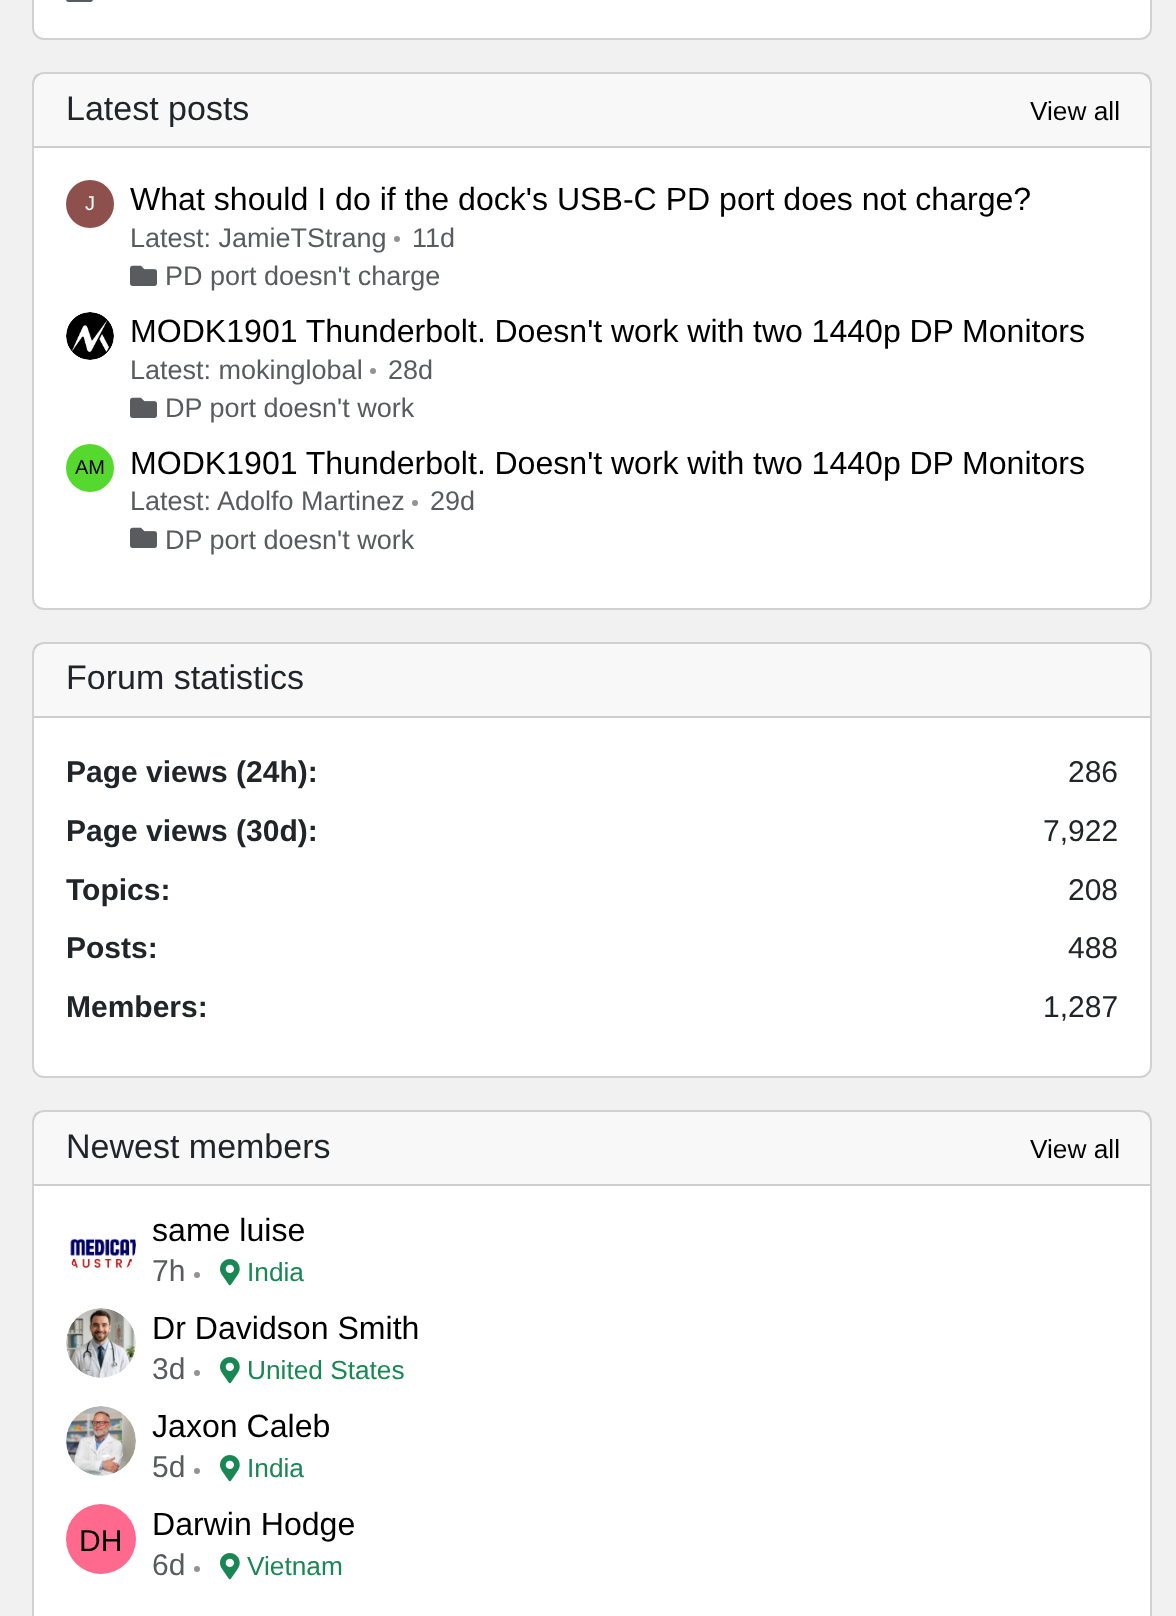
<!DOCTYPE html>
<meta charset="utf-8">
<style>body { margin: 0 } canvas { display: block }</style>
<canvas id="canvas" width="1176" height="1616"></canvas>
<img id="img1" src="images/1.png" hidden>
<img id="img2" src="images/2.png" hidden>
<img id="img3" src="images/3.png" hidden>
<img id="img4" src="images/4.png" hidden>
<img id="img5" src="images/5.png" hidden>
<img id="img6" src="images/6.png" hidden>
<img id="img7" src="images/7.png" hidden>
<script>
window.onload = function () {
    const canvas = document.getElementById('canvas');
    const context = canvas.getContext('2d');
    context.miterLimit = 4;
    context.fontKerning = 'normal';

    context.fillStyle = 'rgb(241, 241, 241)';
    context.fillRect(0, 0, 1176, 1616);
    context.fillStyle = 'rgb(255, 255, 255)';
    context.beginPath();
    context.roundRect(32, -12, 1120, 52, 12);
    context.fill();
    context.beginPath();
    context.roundRect(33, -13, 1118, 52, 11);
    context.strokeStyle = 'rgba(0, 0, 0, 0.18)';
    context.lineWidth = 2;
    context.stroke();
    context.drawImage(document.getElementById('img1'), 66, 0, 27, 2);
    context.beginPath();
    context.roundRect(32, 72, 1120, 538, 12);
    context.fill();
    context.beginPath();
    context.roundRect(33, 73, 1118, 536, 11);
    context.stroke();
    context.fillStyle = 'rgba(33, 37, 41, 0.03)';
    context.fillRect(34, 74, 1116, 72);
    context.fillStyle = 'rgb(205, 205, 205)';
    context.fillRect(34, 146, 1116, 2);
    context.fillStyle = 'rgb(141, 80, 76)';
    context.beginPath();
    context.arc(90, 204, 24, 0, 2 * Math.PI);
    context.fill();
    context.fillStyle = 'rgb(147, 147, 147)';
    context.beginPath();
    context.arc(397, 239, 3, 0, 2 * Math.PI);
    context.fill();
    context.drawImage(document.getElementById('img2'), 130, 265, 27, 21);
    context.drawImage(document.getElementById('img3'), 66, 312, 48, 48);
    context.beginPath();
    context.arc(373, 371, 3, 0, 2 * Math.PI);
    context.fill();
    context.drawImage(document.getElementById('img2'), 130, 397, 27, 21);
    context.fillStyle = 'rgb(86, 217, 47)';
    context.beginPath();
    context.arc(90, 468, 24, 0, 2 * Math.PI);
    context.fill();
    context.fillStyle = 'rgb(147, 147, 147)';
    context.beginPath();
    context.arc(415, 503, 3, 0, 2 * Math.PI);
    context.fill();
    context.drawImage(document.getElementById('img2'), 130, 527, 27, 21);
    context.fillStyle = 'rgb(255, 255, 255)';
    context.beginPath();
    context.roundRect(32, 642, 1120, 436, 12);
    context.fill();
    context.beginPath();
    context.roundRect(33, 643, 1118, 434, 11);
    context.stroke();
    context.fillStyle = 'rgba(33, 37, 41, 0.03)';
    context.fillRect(34, 644, 1116, 72);
    context.fillStyle = 'rgb(205, 205, 205)';
    context.fillRect(34, 716, 1116, 2);
    context.fillStyle = 'rgb(255, 255, 255)';
    context.beginPath();
    context.roundRect(32, 1110, 1120, 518, 12);
    context.fill();
    context.beginPath();
    context.roundRect(33, 1111, 1118, 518, 11);
    context.stroke();
    context.fillStyle = 'rgba(33, 37, 41, 0.03)';
    context.fillRect(34, 1112, 1116, 72);
    context.fillStyle = 'rgb(205, 205, 205)';
    context.fillRect(34, 1184, 1116, 2);
    context.drawImage(document.getElementById('img4'), 70, 1238, 66, 31);
    context.fillStyle = 'rgb(147, 147, 147)';
    context.beginPath();
    context.arc(197, 1275, 3, 0, 2 * Math.PI);
    context.fill();
    context.drawImage(document.getElementById('img5'), 220, 1259, 20, 27);
    context.drawImage(document.getElementById('img6'), 66, 1308, 70, 70);
    context.beginPath();
    context.arc(197, 1373, 3, 0, 2 * Math.PI);
    context.fill();
    context.drawImage(document.getElementById('img5'), 220, 1357, 20, 27);
    context.drawImage(document.getElementById('img7'), 66, 1406, 70, 70);
    context.beginPath();
    context.arc(197, 1471, 3, 0, 2 * Math.PI);
    context.fill();
    context.drawImage(document.getElementById('img5'), 220, 1455, 20, 27);
    context.fillStyle = 'rgb(255, 105, 142)';
    context.beginPath();
    context.arc(101, 1539, 35, 0, 2 * Math.PI);
    context.fill();
    context.fillStyle = 'rgb(147, 147, 147)';
    context.beginPath();
    context.arc(197, 1569, 3, 0, 2 * Math.PI);
    context.fill();
    context.drawImage(document.getElementById('img5'), 220, 1553, 20, 27);
    context.font = '34px Liberation Sans';
    context.fillStyle = 'rgb(33, 37, 41)';
    context.fillText('Latest posts', 66, 120);
    context.font = '26.25px Liberation Sans';
    context.fillStyle = 'rgb(0, 0, 0)';
    context.fillText('View all', 1030, 120);
    context.font = '20px Liberation Sans';
    context.fillStyle = 'rgb(255, 255, 255)';
    context.fillText('J', 85, 210);
    context.font = '32.1px Liberation Sans';
    context.fillStyle = 'rgb(0, 0, 0)';
    context.fillText('What should I do if the dock\'s USB-C PD port does not charge?', 130, 210);
    context.font = '27px Liberation Sans';
    context.fillStyle = 'rgb(89, 92, 95)';
    context.fillText('Latest: JamieTStrang', 130, 247);
    context.fillText('11d', 412, 247);
    context.fillText('PD port doesn\'t charge', 165, 285);
    context.wordSpacing = '-0.25px';
    context.font = '32.1px Liberation Sans';
    context.fillStyle = 'rgb(0, 0, 0)';
    context.fillText('MODK1901 Thunderbolt. Doesn\'t work with two 1440p DP Monitors', 130, 342);
    context.wordSpacing = '0px';
    context.font = '27px Liberation Sans';
    context.fillStyle = 'rgb(89, 92, 95)';
    context.fillText('Latest: mokinglobal', 130, 379);
    context.fillText('28d', 388, 379);
    context.fillText('DP port doesn\'t work', 165, 417);
    context.font = '20px Liberation Sans';
    context.fillStyle = 'rgb(0, 0, 0)';
    context.fillText('AM', 75, 474);
    context.wordSpacing = '-0.25px';
    context.font = '32.1px Liberation Sans';
    context.fillText('MODK1901 Thunderbolt. Doesn\'t work with two 1440p DP Monitors', 130, 474);
    context.wordSpacing = '0px';
    context.font = '27px Liberation Sans';
    context.fillStyle = 'rgb(89, 92, 95)';
    context.fillText('Latest: Adolfo Martinez', 130, 510);
    context.fillText('29d', 430, 510);
    context.fillText('DP port doesn\'t work', 165, 549);
    context.font = '34px Liberation Sans';
    context.fillStyle = 'rgb(33, 37, 41)';
    context.fillText('Forum statistics', 66, 689);
    context.font = 'bold 30px Liberation Sans';
    context.fillText('Page views (24h):', 66, 782);
    context.font = '30px Liberation Sans';
    context.fillText('286', 1068, 782);
    context.font = 'bold 30px Liberation Sans';
    context.fillText('Page views (30d):', 66, 841);
    context.font = '30px Liberation Sans';
    context.fillText('7,922', 1043, 841);
    context.font = 'bold 30px Liberation Sans';
    context.fillText('Topics:', 66, 900);
    context.font = '30px Liberation Sans';
    context.fillText('208', 1068, 900);
    context.font = 'bold 30px Liberation Sans';
    context.fillText('Posts:', 66, 958);
    context.font = '30px Liberation Sans';
    context.fillText('488', 1068, 958);
    context.font = 'bold 30px Liberation Sans';
    context.fillText('Members:', 66, 1017);
    context.font = '30px Liberation Sans';
    context.fillText('1,287', 1043, 1017);
    context.font = '34px Liberation Sans';
    context.fillText('Newest members', 66, 1158);
    context.font = '26.25px Liberation Sans';
    context.fillStyle = 'rgb(0, 0, 0)';
    context.fillText('View all', 1030, 1158);
    context.font = '32.1px Liberation Sans';
    context.fillText('same luise', 152, 1241);
    context.font = '30px Liberation Sans';
    context.fillStyle = 'rgb(89, 92, 95)';
    context.fillText('7h', 152, 1281);
    context.font = '26.25px Liberation Sans';
    context.fillStyle = 'rgb(25, 135, 84)';
    context.fillText('India', 247, 1281);
    context.font = '32.1px Liberation Sans';
    context.fillStyle = 'rgb(0, 0, 0)';
    context.fillText('Dr Davidson Smith', 152, 1339);
    context.font = '30px Liberation Sans';
    context.fillStyle = 'rgb(89, 92, 95)';
    context.fillText('3d', 152, 1379);
    context.font = '26.25px Liberation Sans';
    context.fillStyle = 'rgb(25, 135, 84)';
    context.fillText('United States', 247, 1379);
    context.font = '32.1px Liberation Sans';
    context.fillStyle = 'rgb(0, 0, 0)';
    context.fillText('Jaxon Caleb', 152, 1437);
    context.font = '30px Liberation Sans';
    context.fillStyle = 'rgb(89, 92, 95)';
    context.fillText('5d', 152, 1477);
    context.font = '26.25px Liberation Sans';
    context.fillStyle = 'rgb(25, 135, 84)';
    context.fillText('India', 247, 1477);
    context.font = '30px Liberation Sans';
    context.fillStyle = 'rgb(0, 0, 0)';
    context.fillText('DH', 79, 1551);
    context.font = '32.1px Liberation Sans';
    context.fillText('Darwin Hodge', 152, 1535);
    context.font = '30px Liberation Sans';
    context.fillStyle = 'rgb(89, 92, 95)';
    context.fillText('6d', 152, 1575);
    context.font = '26.25px Liberation Sans';
    context.fillStyle = 'rgb(25, 135, 84)';
    context.fillText('Vietnam', 247, 1575);
};
</script>
